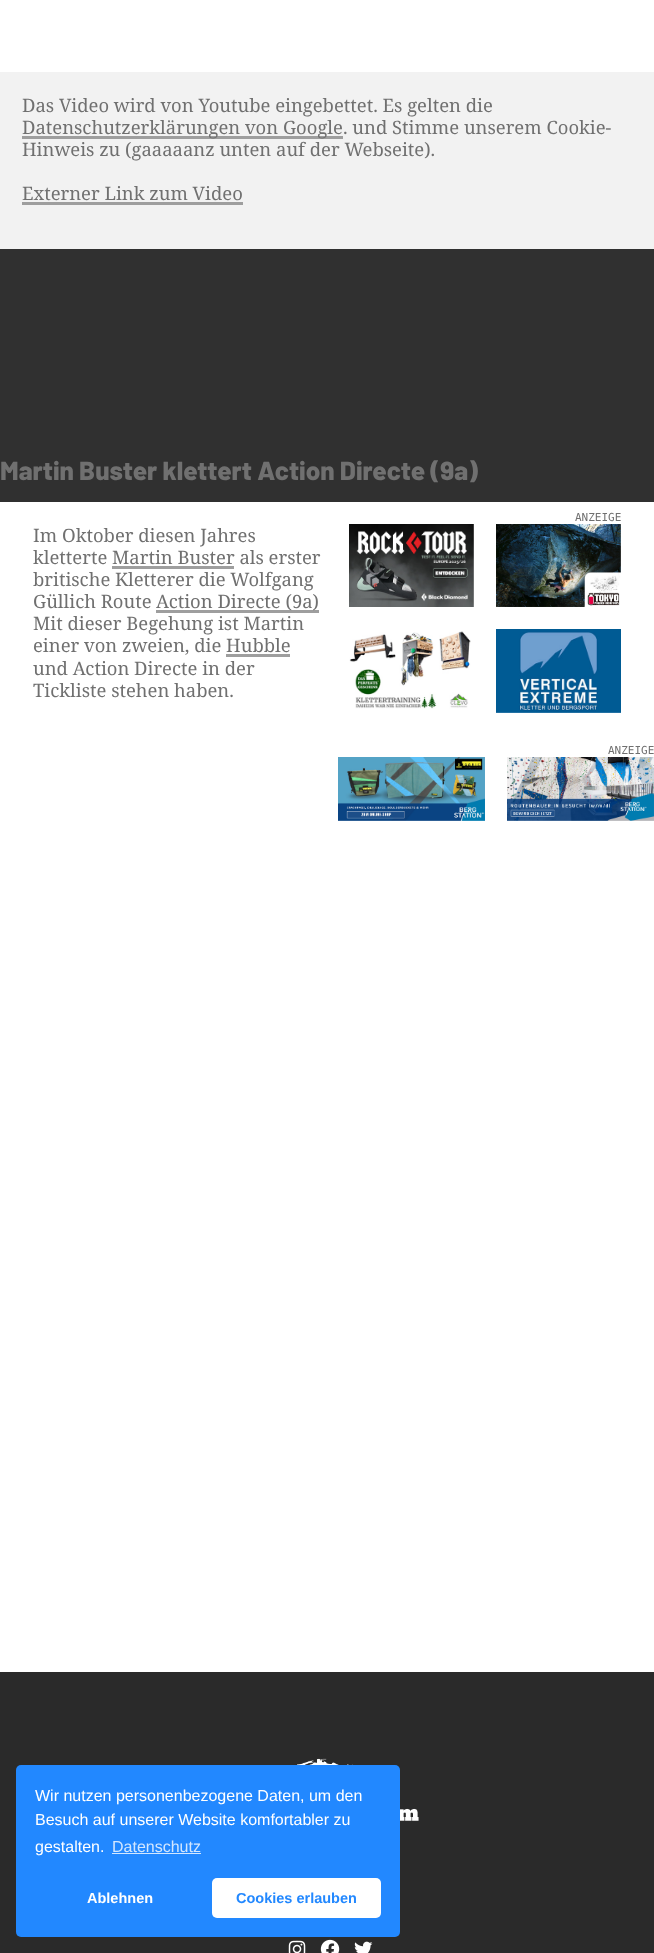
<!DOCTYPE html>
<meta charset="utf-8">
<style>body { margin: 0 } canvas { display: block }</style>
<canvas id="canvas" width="654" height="1953"></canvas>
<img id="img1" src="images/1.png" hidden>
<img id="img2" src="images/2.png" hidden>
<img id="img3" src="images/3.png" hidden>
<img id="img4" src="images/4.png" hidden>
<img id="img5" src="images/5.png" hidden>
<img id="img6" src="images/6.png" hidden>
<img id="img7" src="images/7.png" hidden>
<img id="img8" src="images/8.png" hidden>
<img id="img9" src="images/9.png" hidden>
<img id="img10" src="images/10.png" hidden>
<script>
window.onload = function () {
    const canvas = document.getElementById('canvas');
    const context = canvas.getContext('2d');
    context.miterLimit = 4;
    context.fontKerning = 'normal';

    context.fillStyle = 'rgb(255, 255, 255)';
    context.fillRect(0, 0, 654, 1953);
    context.fillStyle = 'rgb(48, 48, 48)';
    context.fillRect(0, 249, 654, 253);
    context.fillStyle = 'rgb(242, 242, 242)';
    context.fillRect(0, 72, 654, 177);
    context.fillStyle = 'rgb(158, 158, 158)';
    context.fillRect(22, 136, 321, 3);
    context.fillRect(22, 202, 221, 3);
    context.drawImage(document.getElementById('img1'), 349, 524, 125, 83);
    context.drawImage(document.getElementById('img2'), 496, 524, 125, 83);
    context.drawImage(document.getElementById('img3'), 349, 631, 122, 78);
    context.drawImage(document.getElementById('img4'), 496, 629, 125, 84);
    context.fillRect(112, 566, 122, 3);
    context.fillRect(156, 610, 163, 3);
    context.drawImage(document.getElementById('img5'), 338, 757, 147, 64);
    context.drawImage(document.getElementById('img6'), 507, 757, 147, 64);
    context.fillStyle = 'rgb(42, 42, 42)';
    context.fillRect(0, 1672, 654, 281);
    context.drawImage(document.getElementById('img7'), 297, 1758, 122, 63);
    context.drawImage(document.getElementById('img8'), 288, 1940, 18, 13);
    context.drawImage(document.getElementById('img9'), 320, 1939, 20, 14);
    context.drawImage(document.getElementById('img10'), 354, 1941, 19, 12);
    context.fillStyle = 'rgb(34, 136, 255)';
    context.beginPath();
    context.roundRect(16, 1765, 384, 172, 5);
    context.fill();
    context.fillStyle = 'rgb(211, 231, 255)';
    context.fillRect(112, 1853, 89, 1);
    context.fillStyle = 'rgb(255, 255, 255)';
    context.beginPath();
    context.roundRect(212, 1878, 169, 40, 5);
    context.fill();
    context.font = '18.45px Noto Serif';
    context.fillStyle = 'rgb(112, 112, 112)';
    context.fillText('Das Video wird von Youtube eingebettet. Es gelten die', 22, 112);
    context.fillText('Datenschutzerklärungen von Google. und Stimme unserem Cookie-', 22, 134);
    context.fillText('Hinweis zu (gaaaaanz unten auf der Webseite).', 22, 156);
    context.fillText('Externer Link zum Video', 22, 200);
    context.font = '800 26.1px Barlow';
    context.fillText('Martin Buster klettert Action Directe (9a)', 0, 480);
    context.font = '11px DejaVu Sans Mono';
    context.fillText('ANZEIGE', 575, 521);
    context.font = '18.45px Noto Serif';
    context.fillText('Im Oktober diesen Jahres', 33, 542);
    context.fillText('kletterte Martin Buster als erster', 33, 564);
    context.fillText('britische Kletterer die Wolfgang', 33, 586);
    context.fillText('Güllich Route', 33, 608);
    context.fillText('Action Directe (9a)', 156, 608);
    context.fillText('Mit dieser Begehung ist Martin', 33, 630);
    context.fillText('einer von zweien, die Hubble', 33, 652);
    context.fillStyle = 'rgb(158, 158, 158)';
    context.fillRect(226, 654, 64, 3);
    context.fillStyle = 'rgb(112, 112, 112)';
    context.fillText('und Action Directe in der', 33, 675);
    context.fillText('Tickliste stehen haben.', 33, 697);
    context.font = '11px DejaVu Sans Mono';
    context.fillText('ANZEIGE', 608, 754);
    context.font = '16px Liberation Sans';
    context.fillStyle = 'rgb(255, 255, 255)';
    context.fillText('Wir nutzen personenbezogene Daten, um den', 35, 1801);
    context.fillText('Besuch auf unserer Website komfortabler zu', 35, 1825);
    context.fillText('gestalten.', 35, 1852);
    context.fillStyle = 'rgb(211, 231, 255)';
    context.fillText('Datenschutz', 112, 1852);
    context.font = 'bold 14.5px Liberation Sans';
    context.fillStyle = 'rgb(255, 255, 255)';
    context.fillText('Ablehnen', 87, 1903);
    context.fillStyle = 'rgb(34, 136, 255)';
    context.fillText('Cookies erlauben', 236, 1903);
};
</script>
